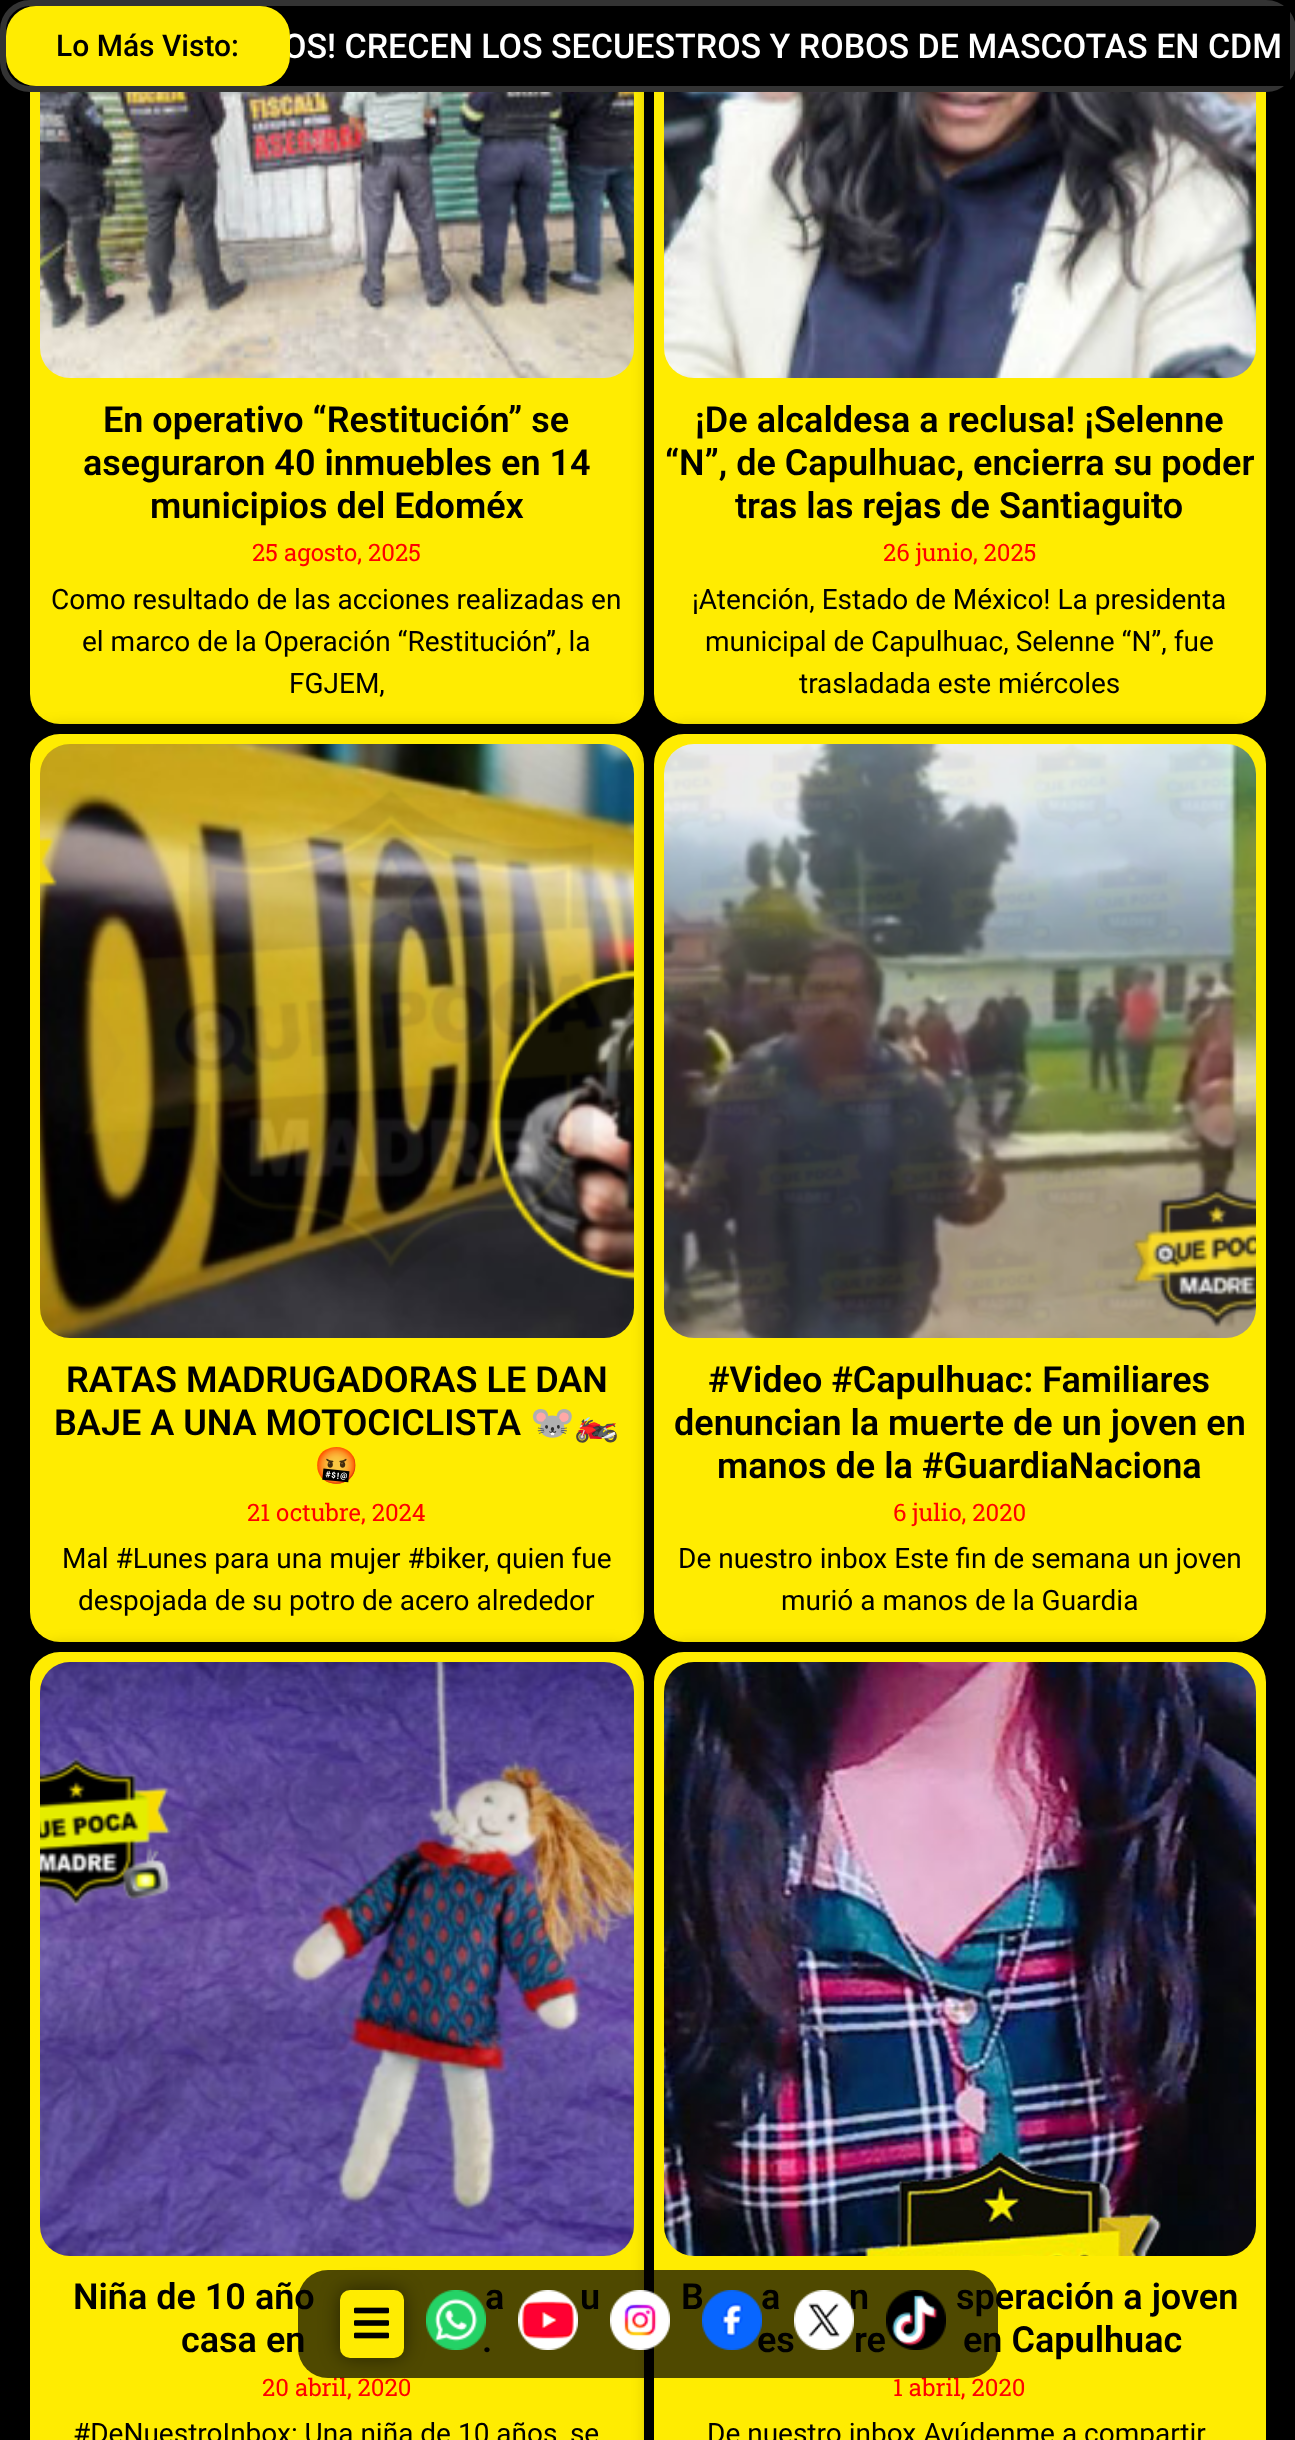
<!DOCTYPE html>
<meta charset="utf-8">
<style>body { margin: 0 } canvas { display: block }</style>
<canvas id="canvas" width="1295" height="2440"></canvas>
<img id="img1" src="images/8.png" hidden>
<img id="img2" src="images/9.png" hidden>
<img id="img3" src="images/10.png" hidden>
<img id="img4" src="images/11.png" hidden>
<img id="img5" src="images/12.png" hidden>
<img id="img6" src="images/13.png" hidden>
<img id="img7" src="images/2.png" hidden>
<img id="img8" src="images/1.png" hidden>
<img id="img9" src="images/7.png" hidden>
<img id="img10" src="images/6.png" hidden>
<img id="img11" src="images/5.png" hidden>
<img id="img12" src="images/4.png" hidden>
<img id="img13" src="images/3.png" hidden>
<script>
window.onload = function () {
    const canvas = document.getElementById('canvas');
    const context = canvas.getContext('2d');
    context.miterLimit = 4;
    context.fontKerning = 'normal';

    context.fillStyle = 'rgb(255, 255, 255)';
    context.fillRect(0, 0, 1295, 2440);
    context.strokeStyle = 'rgb(0, 0, 0)';
    context.lineWidth = 10;
    context.strokeRect(5, -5, 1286, 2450);
    context.fillStyle = 'rgb(0, 0, 0)';
    context.fillRect(10, 0, 1276, 2440);
    context.fillStyle = 'rgb(255, 236, 1)';
    context.beginPath();
    context.roundRect(30, -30, 614, 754, 30);
    context.fill();
    context.fillStyle = 'rgba(0, 0, 0, 0.5)';
    context.filter = 'blur(10px)';
    context.beginPath();
    context.roundRect(654, -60, 612, 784, 30);
    context.fill();
    context.filter = 'none';
    context.fillStyle = 'rgb(255, 236, 1)';
    context.beginPath();
    context.roundRect(654, -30, 612, 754, 30);
    context.fill();
    context.fillStyle = 'rgb(0, 0, 0)';
    context.beginPath();
    context.roundRect(3, 3, 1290, 86, 27);
    context.fill();
    context.strokeStyle = 'rgb(51, 51, 51)';
    context.lineWidth = 6;
    context.stroke();
    context.fillStyle = 'rgb(255, 236, 1)';
    context.beginPath();
    context.roundRect(6, 6, 284, 80, 30);
    context.fill();
    context.fillStyle = 'rgb(0, 0, 0)';
    context.fillRect(1267, 6, 23, 80);
    context.drawImage(document.getElementById('img1'), 40, 92, 594, 286);
    context.drawImage(document.getElementById('img2'), 664, 92, 592, 286);
    context.fillStyle = 'rgba(0, 0, 0, 0.5)';
    context.filter = 'blur(10px)';
    context.beginPath();
    context.roundRect(30, 734, 614, 908, 30);
    context.fill();
    context.filter = 'none';
    context.fillStyle = 'rgb(255, 236, 1)';
    context.beginPath();
    context.roundRect(30, 734, 614, 908, 30);
    context.fill();
    context.fillStyle = 'rgba(0, 0, 0, 0.5)';
    context.filter = 'blur(10px)';
    context.beginPath();
    context.roundRect(654, 734, 612, 908, 30);
    context.fill();
    context.filter = 'none';
    context.drawImage(document.getElementById('img3'), 40, 744, 594, 594);
    context.fillStyle = 'rgb(255, 236, 1)';
    context.beginPath();
    context.roundRect(654, 734, 612, 908, 30);
    context.fill();
    context.drawImage(document.getElementById('img4'), 664, 744, 592, 594);
    context.fillStyle = 'rgba(0, 0, 0, 0.5)';
    context.filter = 'blur(10px)';
    context.beginPath();
    context.roundRect(30, 1652, 614, 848, 30);
    context.fill();
    context.filter = 'none';
    context.fillStyle = 'rgb(255, 236, 1)';
    context.beginPath();
    context.roundRect(30, 1652, 614, 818, 30);
    context.fill();
    context.fillStyle = 'rgba(0, 0, 0, 0.5)';
    context.filter = 'blur(10px)';
    context.beginPath();
    context.roundRect(654, 1652, 612, 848, 30);
    context.fill();
    context.filter = 'none';
    context.drawImage(document.getElementById('img5'), 40, 1662, 594, 594);
    context.fillStyle = 'rgb(255, 236, 1)';
    context.beginPath();
    context.roundRect(654, 1652, 612, 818, 30);
    context.fill();
    context.drawImage(document.getElementById('img6'), 664, 1662, 592, 594);
    context.font = '500 30px Roboto';
    context.fillStyle = 'rgb(0, 0, 0)';
    context.fillText('Lo Más Visto:', 56, 56);
    context.save();
    context.beginPath();
    context.rect(290, 6, 1000, 80);
    context.clip();
    context.font = '500 34px Roboto';
    context.fillStyle = 'rgb(255, 255, 255)';
    context.fillText('OS! CRECEN LOS SECUESTROS Y ROBOS DE MASCOTAS EN CDM', 283, 58);
    context.restore();
    context.font = '600 36px Roboto';
    context.fillText('En operativo “Restitución” se', 103, 432);
    context.fillText('aseguraron 40 inmuebles en 14', 83, 475);
    context.fillText('municipios del Edoméx', 150, 518);
    context.font = '24px Roboto Slab';
    context.fillStyle = 'rgb(255, 0, 0)';
    context.fillText('25 agosto, 2025', 252, 561);
    context.font = '28px Roboto';
    context.fillStyle = 'rgb(0, 0, 0)';
    context.fillText('Como resultado de las acciones realizadas en', 51, 609);
    context.fillText('el marco de la Operación “Restitución”, la', 82, 651);
    context.fillText('FGJEM,', 289, 693);
    context.font = '600 36px Roboto';
    context.fillText('¡De alcaldesa a reclusa! ¡Selenne', 695, 432);
    context.fillText('“N”, de Capulhuac, encierra su poder', 665, 475);
    context.fillText('tras las rejas de Santiaguito', 735, 518);
    context.font = '24px Roboto Slab';
    context.fillStyle = 'rgb(255, 0, 0)';
    context.fillText('26 junio, 2025', 883, 561);
    context.font = '28px Roboto';
    context.fillStyle = 'rgb(0, 0, 0)';
    context.fillText('¡Atención, Estado de México! La presidenta', 692, 609);
    context.fillText('municipal de Capulhuac, Selenne “N”, fue', 705, 651);
    context.fillText('trasladada este miércoles', 799, 693);
    context.font = '600 36px Roboto';
    context.fillText('RATAS MADRUGADORAS LE DAN', 66, 1392);
    context.fillText('BAJE A UNA MOTOCICLISTA', 54, 1435);
    context.font = 'bold 36px Noto Color Emoji';
    context.fillText('🐭🏍️', 530, 1435);
    context.fillText('🤬', 314, 1478);
    context.font = '24px Roboto Slab';
    context.fillStyle = 'rgb(255, 0, 0)';
    context.fillText('21 octubre, 2024', 247, 1521);
    context.font = '28px Roboto';
    context.fillStyle = 'rgb(0, 0, 0)';
    context.fillText('Mal #Lunes para una mujer #biker, quien fue', 62, 1568);
    context.fillText('despojada de su potro de acero alrededor', 78, 1610);
    context.font = '600 36px Roboto';
    context.fillText('#Video #Capulhuac: Familiares', 708, 1392);
    context.fillText('denuncian la muerte de un joven en', 674, 1435);
    context.fillText('manos de la #GuardiaNaciona', 717, 1478);
    context.font = '24px Roboto Slab';
    context.fillStyle = 'rgb(255, 0, 0)';
    context.fillText('6 julio, 2020', 893, 1521);
    context.font = '28px Roboto';
    context.fillStyle = 'rgb(0, 0, 0)';
    context.fillText('De nuestro inbox Este fin de semana un joven', 678, 1568);
    context.fillText('murió a manos de la Guardia', 781, 1610);
    context.font = '600 36px Roboto';
    context.fillText('Niña de 10 año', 73, 2309);
    context.fillText('a', 485, 2309);
    context.fillText('u', 580, 2309);
    context.fillText('casa en', 181, 2352);
    context.fillText('.', 482, 2352);
    context.font = '24px Roboto Slab';
    context.fillStyle = 'rgb(255, 0, 0)';
    context.fillText('20 abril, 2020', 262, 2396);
    context.font = '28px Roboto';
    context.fillStyle = 'rgb(0, 0, 0)';
    context.fillText('#DeNuestroInbox: Una niña de 10 años, se', 73, 2443);
    context.font = '600 36px Roboto';
    context.fillText('B', 681, 2309);
    context.fillText('a', 761, 2309);
    context.fillText('n', 849, 2309);
    context.fillText('speración a joven', 956, 2309);
    context.fillText('es', 757, 2352);
    context.fillText('re', 854, 2352);
    context.fillText('en Capulhuac', 963, 2352);
    context.font = '24px Roboto Slab';
    context.fillStyle = 'rgb(255, 0, 0)';
    context.fillText('1 abril, 2020', 893, 2396);
    context.fillStyle = 'rgba(0, 0, 0, 0.69)';
    context.beginPath();
    context.roundRect(298, 2270, 700, 108, 30);
    context.fill();
    context.drawImage(document.getElementById('img7'), 426, 2290, 60, 60);
    context.fillStyle = 'rgba(0, 0, 0, 0.5)';
    context.filter = 'blur(10px)';
    context.beginPath();
    context.roundRect(340, 2290, 64, 68, 10);
    context.fill();
    context.filter = 'none';
    context.fillStyle = 'rgb(255, 236, 1)';
    context.beginPath();
    context.roundRect(340, 2290, 64, 68, 10);
    context.fill();
    context.drawImage(document.getElementById('img8'), 354, 2307, 35, 32);
    context.drawImage(document.getElementById('img9'), 886, 2290, 60, 60);
    context.drawImage(document.getElementById('img10'), 794, 2290, 60, 60);
    context.drawImage(document.getElementById('img11'), 702, 2290, 60, 60);
    context.drawImage(document.getElementById('img12'), 610, 2290, 60, 60);
    context.drawImage(document.getElementById('img13'), 518, 2290, 60, 60);
    context.font = '28px Roboto';
    context.fillStyle = 'rgb(0, 0, 0)';
    context.fillText('De nuestro inbox Ayúdenme a compartir.', 707, 2443);
};
</script>
